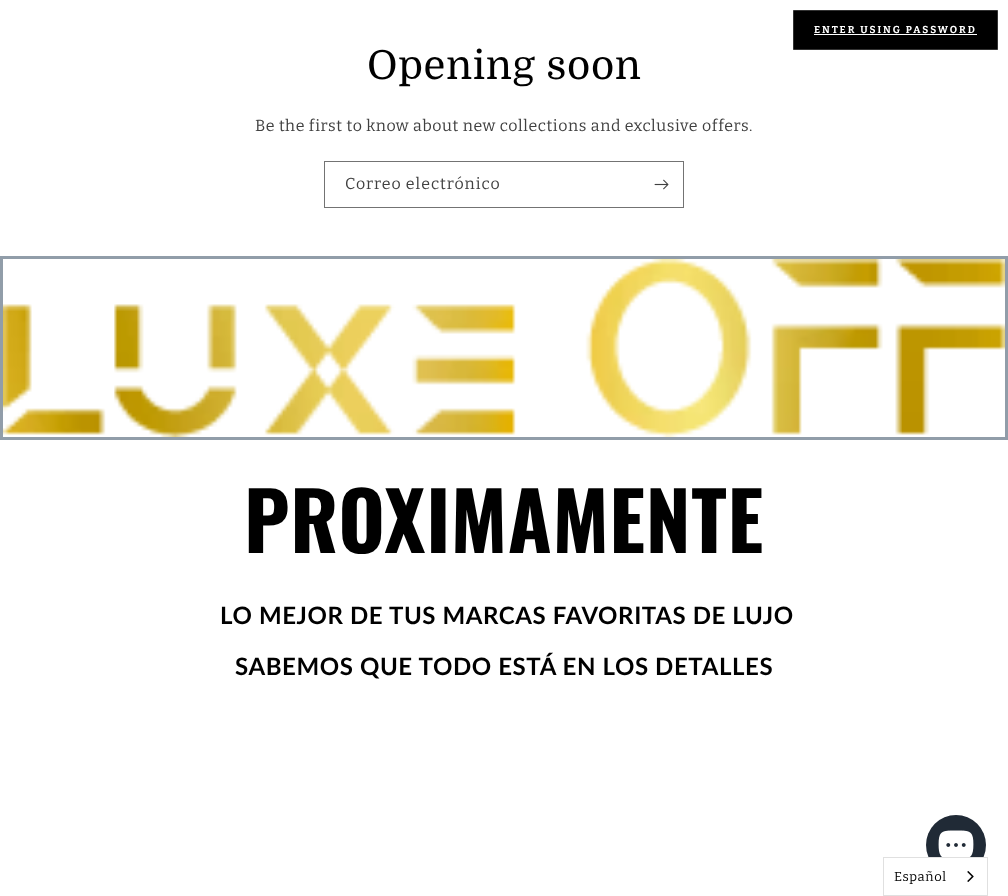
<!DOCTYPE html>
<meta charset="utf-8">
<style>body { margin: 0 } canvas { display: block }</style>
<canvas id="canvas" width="1008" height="896"></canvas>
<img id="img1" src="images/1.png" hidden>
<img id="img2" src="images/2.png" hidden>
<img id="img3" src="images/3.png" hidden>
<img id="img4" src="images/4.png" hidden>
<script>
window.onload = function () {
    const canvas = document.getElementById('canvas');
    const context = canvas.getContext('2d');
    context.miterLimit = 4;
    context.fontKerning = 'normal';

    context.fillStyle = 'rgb(255, 255, 255)';
    context.fillRect(0, 0, 1008, 896);
    context.fillStyle = 'rgb(0, 0, 0)';
    context.beginPath();
    context.rect(793.5, 10.5, 204, 39);
    context.fill();
    context.strokeStyle = 'rgb(51, 51, 51)';
    context.stroke();
    context.fillStyle = 'rgb(255, 255, 255)';
    context.fillRect(814, 34, 163, 1);
    context.strokeStyle = 'rgb(145, 157, 169)';
    context.lineWidth = 3;
    context.strokeRect(1.5, 257.5, 1005, 181);
    context.drawImage(document.getElementById('img1'), 3, 259, 1002, 178);
    context.strokeStyle = 'rgb(115, 115, 115)';
    context.lineWidth = 1;
    context.strokeRect(324.5, 161.5, 359, 46);
    context.drawImage(document.getElementById('img2'), 654, 179, 15, 11);
    context.fillStyle = 'rgb(32, 42, 54)';
    context.beginPath();
    context.arc(956, 845, 30, 0, 2 * Math.PI);
    context.fill();
    context.drawImage(document.getElementById('img3'), 938, 830, 36, 27);
    context.fillStyle = 'rgb(255, 255, 255)';
    context.fillRect(929, 858, 54, 17);
    context.strokeStyle = 'rgb(224, 224, 224)';
    context.strokeRect(883.5, 857.5, 104, 38);
    context.drawImage(document.getElementById('img4'), 967, 871, 7, 11);
    context.letterSpacing = '2px';
    context.font = 'bold 10px Bitter';
    context.fillText('ENTER USING PASSWORD', 814, 33);
    context.letterSpacing = '0.6px';
    context.font = 'bold 80px Oswald';
    context.fillStyle = 'rgb(0, 0, 0)';
    context.fillText('PROXIMAMENTE', 244, 553);
    context.font = 'bold 24px Lato';
    context.fillText('LO MEJOR DE TUS MARCAS FAVORITAS DE LUJO', 220, 624);
    context.fillText('SABEMOS QUE TODO ESTÁ EN LOS DETALLES', 235, 675);
    context.font = '40px Domine';
    context.fillText('Opening soon', 367, 79);
    context.font = '16px Bitter';
    context.fillStyle = 'rgb(64, 64, 64)';
    context.fillText('Be the first to know about new collections and exclusive offers.', 255, 131);
    context.letterSpacing = '1px';
    context.fillText('Correo electrónico', 345, 189);
    context.letterSpacing = '0.6px';
    context.font = '13px Bitter';
    context.fillStyle = 'rgb(0, 0, 0)';
    context.fillText('Español', 894, 881);
};
</script>
